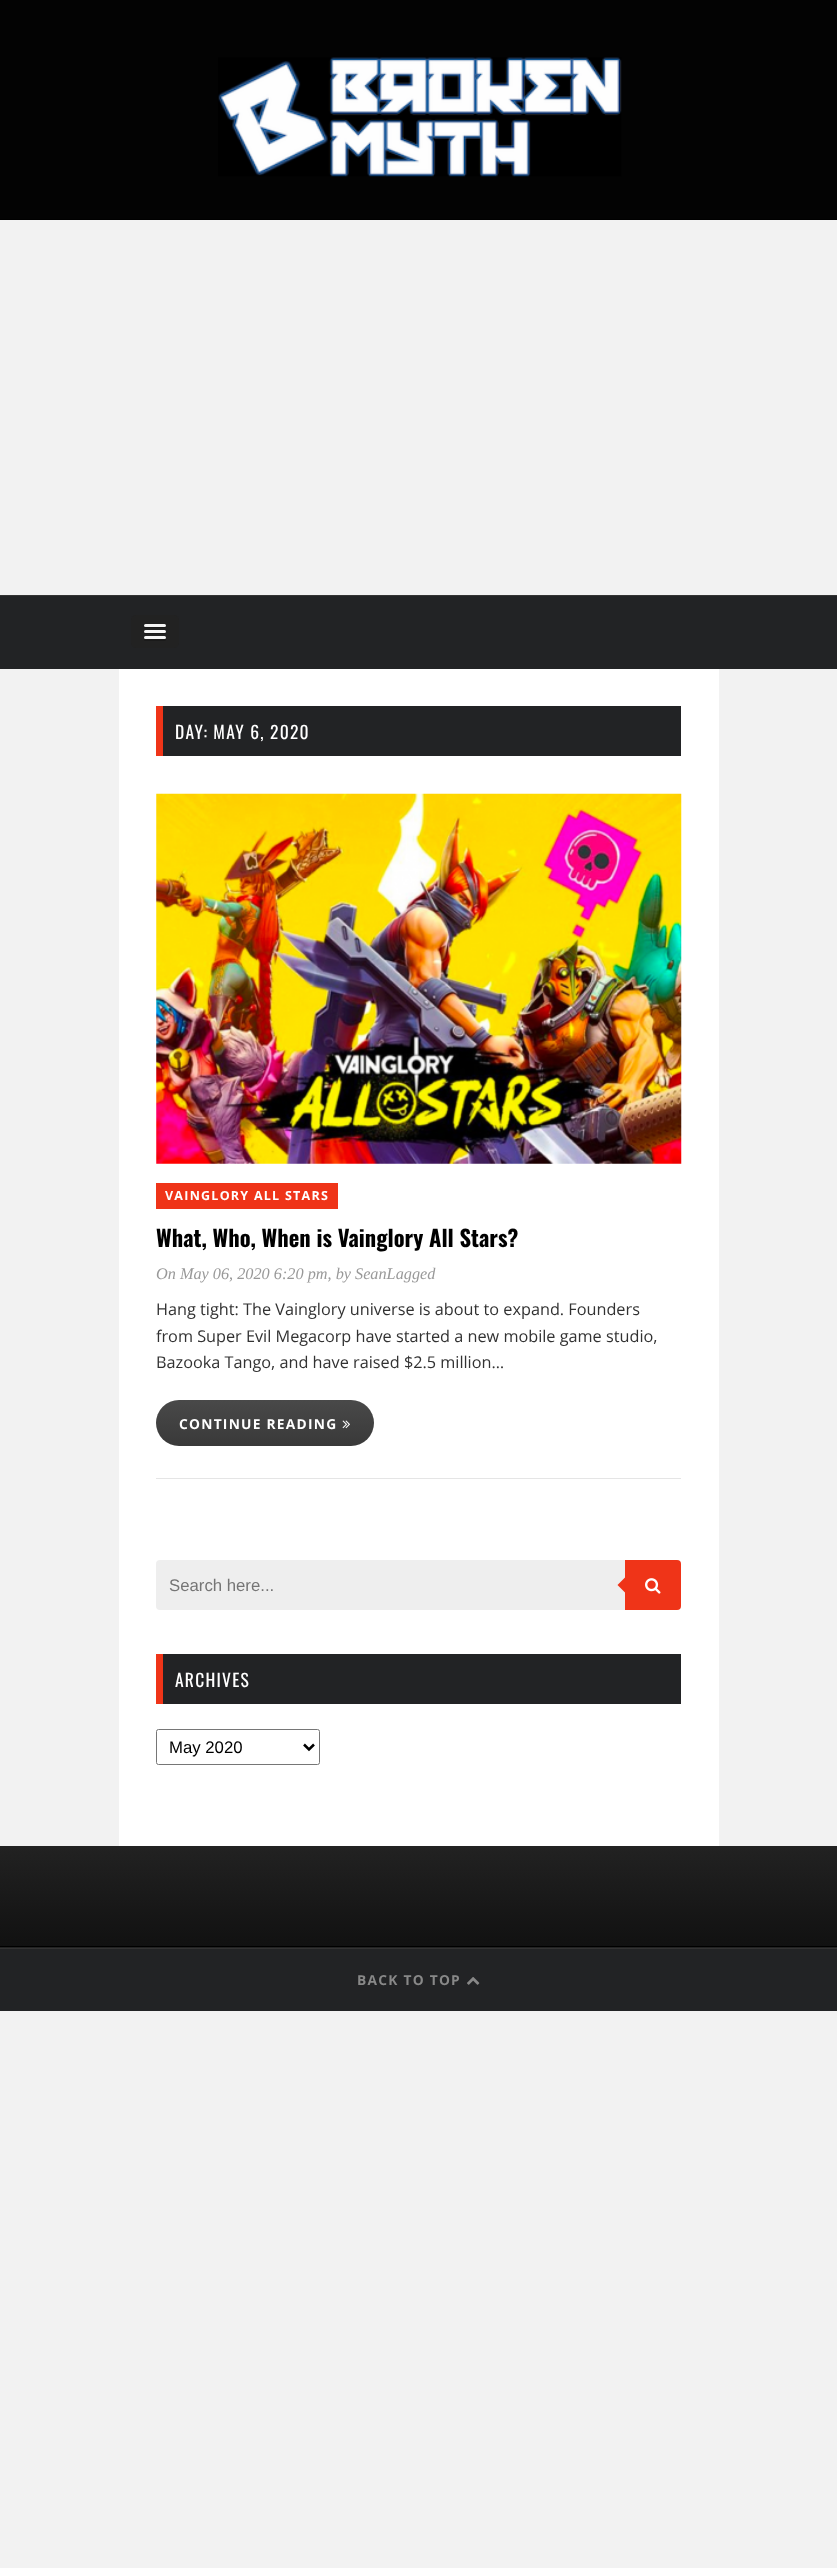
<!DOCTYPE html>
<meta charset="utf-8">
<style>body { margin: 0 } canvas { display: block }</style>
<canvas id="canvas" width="837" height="2568"></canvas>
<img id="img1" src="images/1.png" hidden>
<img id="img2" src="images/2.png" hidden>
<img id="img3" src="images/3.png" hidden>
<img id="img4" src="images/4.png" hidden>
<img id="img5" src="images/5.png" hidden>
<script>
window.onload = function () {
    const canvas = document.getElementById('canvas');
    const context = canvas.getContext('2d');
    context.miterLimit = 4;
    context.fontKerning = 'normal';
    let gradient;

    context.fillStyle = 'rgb(242, 242, 242)';
    context.fillRect(0, 0, 837, 2568);
    context.fillStyle = 'rgb(3, 3, 3)';
    context.fillRect(0, 0, 837, 219);
    context.fillStyle = 'rgb(0, 0, 0)';
    context.fillRect(0, 219, 837, 1);
    context.drawImage(document.getElementById('img1'), 218, 57, 404, 120);
    context.fillStyle = 'rgb(34, 35, 37)';
    context.fillRect(0, 596, 837, 73);
    context.fillStyle = 'rgb(52, 52, 52)';
    context.fillRect(0, 595, 837, 1);
    context.fillStyle = 'rgb(34, 34, 34)';
    context.beginPath();
    context.roundRect(131, 615, 48, 33, 5);
    context.fill();
    context.fillStyle = 'rgb(26, 26, 26)';
    context.beginPath();
    context.moveTo(144, 626);
    context.bezierCurveTo(143, 628.5, 148, 628, 148.5, 628);
    context.lineTo(161.5, 628);
    context.bezierCurveTo(162, 628, 167, 628.5, 166, 626);
    context.bezierCurveTo(165, 626.5, 145, 626.5, 144, 626);
    context.closePath();
    context.fill();
    context.fillStyle = 'rgb(245, 245, 245)';
    context.beginPath();
    context.roundRect(144, 624, 22, 3, 1.5);
    context.fill();
    context.fillStyle = 'rgb(26, 26, 26)';
    context.beginPath();
    context.moveTo(144, 632);
    context.bezierCurveTo(143.5, 634.5, 148, 634, 148.5, 634);
    context.lineTo(161.5, 634);
    context.bezierCurveTo(162, 634, 166.5, 634.5, 166, 632);
    context.bezierCurveTo(165, 633, 145, 633, 144, 632);
    context.closePath();
    context.fill();
    context.fillStyle = 'rgb(245, 245, 245)';
    context.beginPath();
    context.roundRect(144, 630, 22, 3, 1.5);
    context.fill();
    context.fillStyle = 'rgb(26, 26, 26)';
    context.beginPath();
    context.moveTo(144.5, 638.5);
    context.lineTo(144, 640);
    context.bezierCurveTo(144.5, 641.5, 147.5, 641, 148.5, 641);
    context.lineTo(161.5, 641);
    context.bezierCurveTo(162.5, 641, 165.5, 641.5, 166, 640);
    context.lineTo(165.5, 638.5);
    context.closePath();
    context.fill();
    context.fillStyle = 'rgb(245, 245, 245)';
    context.beginPath();
    context.roundRect(144, 636, 22, 3, 1.5);
    context.fill();
    context.fillStyle = 'rgb(255, 255, 255)';
    context.fillRect(119, 669, 600, 1177);
    context.fillStyle = 'rgb(34, 35, 37)';
    context.fillRect(163, 706, 518, 50);
    context.fillStyle = 'rgb(239, 52, 24)';
    context.fillRect(156, 706, 7, 50);
    context.fillStyle = 'rgb(229, 229, 229)';
    context.fillRect(156, 1478, 525, 1);
    context.drawImage(document.getElementById('img2'), 156, 793, 526, 371);
    context.fillStyle = 'rgb(239, 52, 24)';
    context.fillRect(156, 1183, 182, 26);
    gradient = context.createLinearGradient(265, 1400, 265, 1446);
    gradient.addColorStop(0, 'rgb(73, 73, 73)');
    gradient.addColorStop(1, 'rgb(57, 57, 57)');
    context.fillStyle = gradient;
    context.beginPath();
    context.roundRect(156, 1400, 218, 46, 23);
    context.fill();
    context.drawImage(document.getElementById('img3'), 342, 1420, 8, 9);
    context.fillStyle = 'rgb(238, 238, 238)';
    context.beginPath();
    context.roundRect(156, 1560, 469, 50, [4, 0, 0, 4]);
    context.fill();
    context.fillStyle = 'rgb(239, 52, 24)';
    context.beginPath();
    context.roundRect(625, 1560, 56, 50, [0, 4, 4, 0]);
    context.fill();
    context.beginPath();
    context.moveTo(627.5, 1575);
    context.lineTo(627.5, 1595);
    context.lineTo(617.5, 1585);
    context.closePath();
    context.fill();
    context.drawImage(document.getElementById('img4'), 645, 1578, 16, 16);
    context.fillStyle = 'rgb(34, 35, 37)';
    context.fillRect(163, 1654, 518, 50);
    context.fillStyle = 'rgb(239, 52, 24)';
    context.fillRect(156, 1654, 7, 50);
    context.beginPath();
    context.roundRect(156.5, 1729.5, 163, 35, 2);
    context.strokeStyle = 'rgb(118, 118, 118)';
    context.stroke();
    context.beginPath();
    context.moveTo(304, 1744.5);
    context.lineTo(309, 1749.5);
    context.lineTo(314, 1744.5);
    context.strokeStyle = 'rgb(0, 0, 0)';
    context.lineWidth = 2.5;
    context.stroke();
    gradient = context.createLinearGradient(419, 1846, 419, 1946);
    gradient.addColorStop(0, 'rgb(34, 34, 34)');
    gradient.addColorStop(1, 'rgb(17, 17, 17)');
    context.fillStyle = gradient;
    context.fillRect(0, 1846, 837, 100);
    gradient = context.createLinearGradient(419, 1946, 419, 2046);
    gradient.addColorStop(0, 'rgb(34, 34, 34)');
    gradient.addColorStop(1, 'rgb(17, 17, 17)');
    context.fillStyle = gradient;
    context.fillRect(0, 1947, 837, 1);
    context.fillStyle = 'rgb(0, 0, 0)';
    context.fillRect(0, 1946, 837, 1);
    context.fillStyle = 'rgb(34, 35, 37)';
    context.fillRect(0, 1949, 837, 62);
    context.fillStyle = 'rgb(51, 51, 51)';
    context.fillRect(0, 1948, 837, 1);
    context.drawImage(document.getElementById('img5'), 467, 1977, 13, 8);
    context.letterSpacing = '1.25px';
    context.font = '17.5px Oswald';
    context.fillStyle = 'rgb(255, 255, 255)';
    context.fillText('DAY: MAY 6, 2020', 175, 739);
    context.font = 'bold 12.5px Open Sans';
    context.fillText('VAINGLORY ALL STARS', 165, 1200);
    context.letterSpacing = '0px';
    context.font = 'bold 22.5px Oswald';
    context.fillStyle = 'rgb(0, 0, 0)';
    context.fillText('What, Who, When is Vainglory All Stars?', 156, 1247);
    context.font = 'italic 16.25px Liberation Serif';
    context.fillStyle = 'rgb(153, 153, 153)';
    context.fillText('On May 06, 2020 6:20 pm, by SeanLagged', 156, 1279);
    context.font = '16.25px Open Sans';
    context.fillStyle = 'rgb(50, 50, 50)';
    context.fillText('Hang tight: The Vainglory universe is about to expand. Founders', 156, 1315);
    context.fillText('from Super Evil Megacorp have started a new mobile game studio,', 156, 1342);
    context.fillText('Bazooka Tango, and have raised $2.5 million…', 156, 1368);
    context.letterSpacing = '1.25px';
    context.font = 'bold 13.75px Open Sans';
    context.fillStyle = 'rgb(255, 255, 255)';
    context.fillText('CONTINUE READING', 179, 1429);
    context.letterSpacing = '0px';
    context.font = '16.75px Liberation Sans';
    context.fillStyle = 'rgb(117, 117, 117)';
    context.fillText('Search here...', 169, 1591);
    context.letterSpacing = '1.25px';
    context.font = '17.5px Oswald';
    context.fillStyle = 'rgb(255, 255, 255)';
    context.fillText('ARCHIVES', 175, 1687);
    context.letterSpacing = '0px';
    context.font = '16.75px Liberation Sans';
    context.fillStyle = 'rgb(0, 0, 0)';
    context.fillText('May 2020', 169, 1753);
    context.letterSpacing = '1.25px';
    context.font = 'bold 13.75px Open Sans';
    context.fillStyle = 'rgb(136, 136, 136)';
    context.fillText('BACK TO TOP', 357, 1985);
};
</script>
